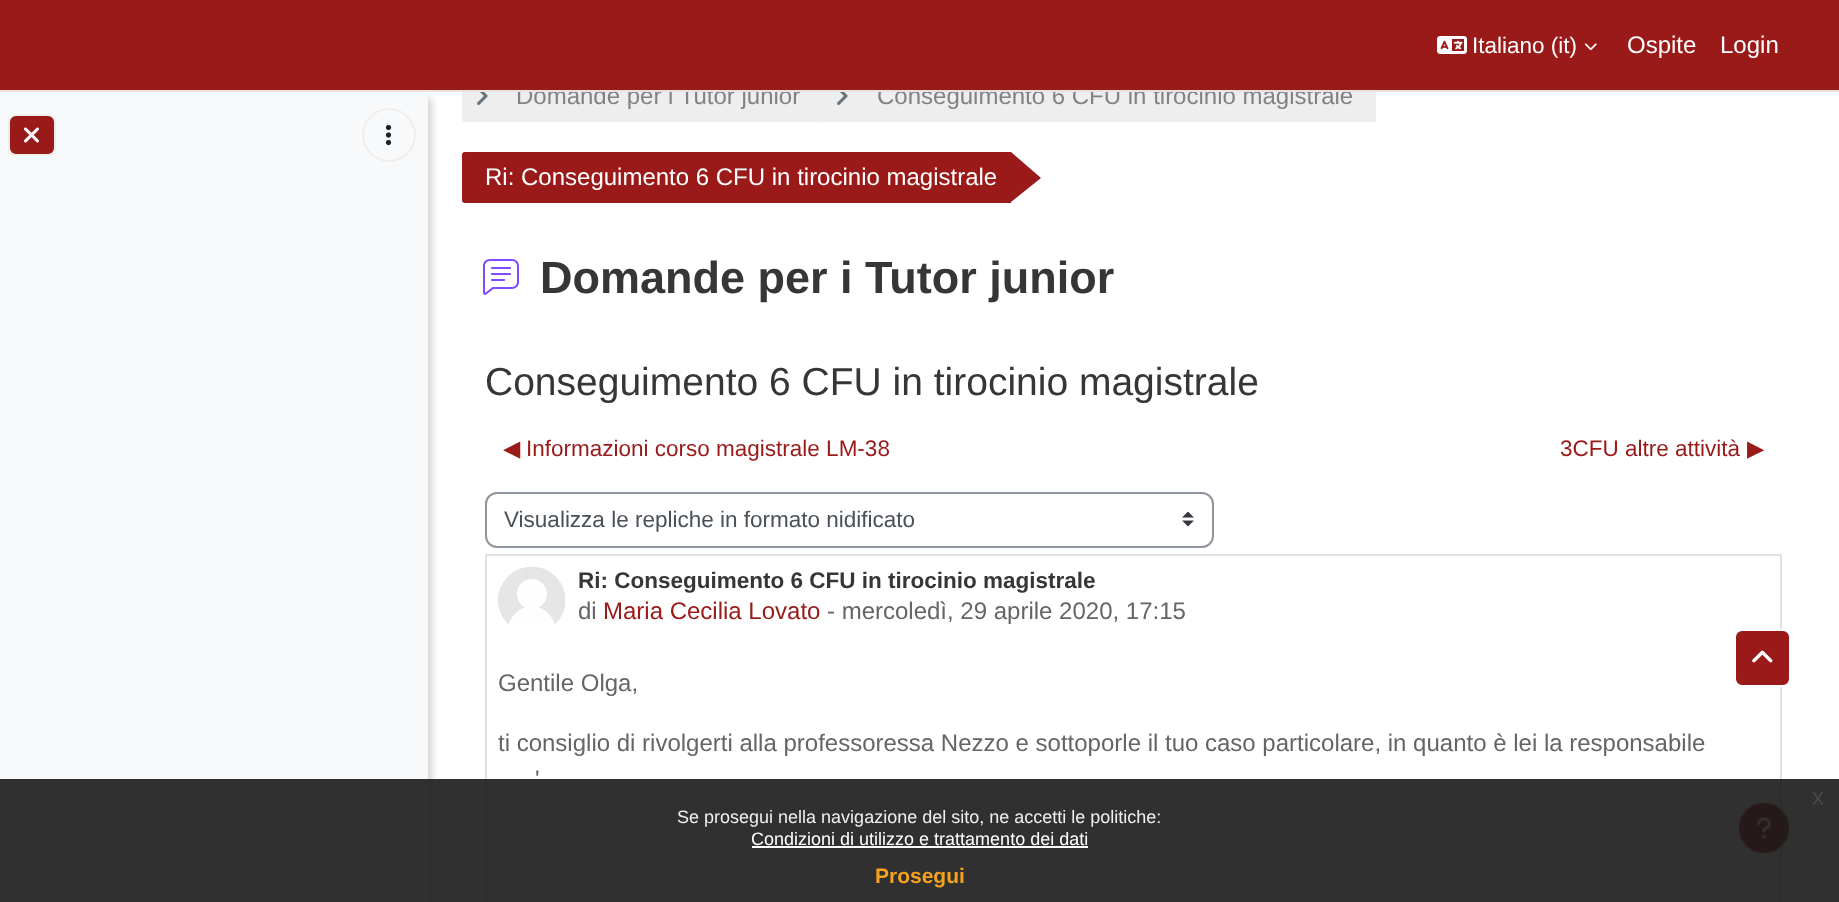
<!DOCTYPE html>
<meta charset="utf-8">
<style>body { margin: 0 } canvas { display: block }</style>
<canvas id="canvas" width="1839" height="902"></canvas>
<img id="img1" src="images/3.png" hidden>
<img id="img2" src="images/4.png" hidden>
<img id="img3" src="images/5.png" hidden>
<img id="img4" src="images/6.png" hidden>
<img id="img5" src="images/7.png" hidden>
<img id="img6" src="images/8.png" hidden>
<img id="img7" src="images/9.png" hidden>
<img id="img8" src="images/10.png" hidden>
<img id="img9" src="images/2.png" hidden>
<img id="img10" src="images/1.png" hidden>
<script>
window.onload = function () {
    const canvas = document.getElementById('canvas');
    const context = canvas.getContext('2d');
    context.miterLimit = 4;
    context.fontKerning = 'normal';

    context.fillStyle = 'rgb(255, 255, 255)';
    context.fillRect(0, 0, 1839, 902);
    context.fillStyle = 'rgba(0, 0, 0, 0.2)';
    context.filter = 'blur(4px)';
    context.beginPath();
    context.rect(3, 98, 428, 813);
    context.fill();
    context.filter = 'none';
    context.fillStyle = 'rgb(248, 249, 250)';
    context.fillRect(0, 92, 428, 810);
    context.fillStyle = 'rgb(154, 25, 25)';
    context.beginPath();
    context.roundRect(9, 115, 46, 40, 7);
    context.fill();
    context.strokeStyle = 'rgb(238, 238, 238)';
    context.lineWidth = 2;
    context.stroke();
    context.drawImage(document.getElementById('img1'), 24, 127, 15, 16);
    context.beginPath();
    context.arc(389, 135, 26, 0, 2 * Math.PI);
    context.stroke();
    context.drawImage(document.getElementById('img2'), 385, 124, 7, 22);
    context.fillStyle = 'rgb(238, 238, 238)';
    context.beginPath();
    context.roundRect(462, 71, 360, 51, [3, 0, 0, 3]);
    context.fill();
    context.drawImage(document.getElementById('img3'), 477, 92, 11, 13);
    context.beginPath();
    context.roundRect(822, 71, 554, 51, [3, 0, 0, 3]);
    context.fill();
    context.drawImage(document.getElementById('img3'), 837, 92, 11, 13);
    context.fillStyle = 'rgb(154, 25, 25)';
    context.beginPath();
    context.roundRect(462, 152, 549, 51, [3, 0, 0, 3]);
    context.fill();
    context.beginPath();
    context.moveTo(1011, 202);
    context.lineTo(1011, 152);
    context.lineTo(1041, 178);
    context.closePath();
    context.fill();
    context.drawImage(document.getElementById('img4'), 483, 259, 36, 36);
    context.drawImage(document.getElementById('img5'), 1182, 512, 12, 15);
    context.beginPath();
    context.roundRect(486, 493, 727, 54, 11);
    context.strokeStyle = 'rgb(143, 149, 158)';
    context.stroke();
    context.strokeStyle = 'rgb(222, 226, 230)';
    context.strokeRect(486, 555, 1295, 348);
    context.drawImage(document.getElementById('img6'), 498, 566, 68, 59);
    context.beginPath();
    context.roundRect(1735, 630, 55, 56, 7);
    context.fill();
    context.strokeStyle = 'rgb(255, 255, 255)';
    context.stroke();
    context.drawImage(document.getElementById('img7'), 1752, 650, 21, 13);
    context.beginPath();
    context.arc(1764, 828, 26, 0, 2 * Math.PI);
    context.fill();
    context.strokeStyle = 'rgb(238, 238, 238)';
    context.stroke();
    context.drawImage(document.getElementById('img8'), 1757, 817, 14, 22);
    context.fillStyle = 'rgba(25, 25, 25, 0.9)';
    context.fillRect(0, 779, 1839, 123);
    context.fillStyle = 'rgb(255, 255, 255)';
    context.fillRect(752, 846, 336, 2);
    context.font = '24px Liberation Sans';
    context.fillStyle = 'rgb(130, 130, 130)';
    context.fillText('Domande per i Tutor junior', 516, 104);
    context.fillText('Conseguimento 6 CFU in tirocinio magistrale', 877, 104);
    context.fillStyle = 'rgb(154, 25, 25)';
    context.fillRect(0, 0, 1839, 90);
    context.drawImage(document.getElementById('img9'), 1584, 43, 13, 8);
    context.font = '22.5px Liberation Sans';
    context.fillStyle = 'rgb(255, 255, 255)';
    context.fillText('Italiano (it)', 1472, 53);
    context.drawImage(document.getElementById('img10'), 1437, 36, 30, 18);
    context.font = '24px Liberation Sans';
    context.fillText('Login', 1720, 53);
    context.fillText('Ospite', 1627, 53);
    context.fillStyle = 'rgb(232, 227, 227)';
    context.fillRect(0, 90, 1839, 2);
    context.fillStyle = 'rgb(255, 255, 255)';
    context.fillText('Ri: Conseguimento 6 CFU in tirocinio magistrale', 485, 185);
    context.font = 'bold 45px Liberation Sans';
    context.fillStyle = 'rgb(54, 54, 54)';
    context.fillText('Domande per i Tutor junior', 540, 293);
    context.font = '39px Liberation Sans';
    context.fillText('Conseguimento 6 CFU in tirocinio magistrale', 485, 395);
    context.font = '22.5px DejaVu Sans';
    context.fillStyle = 'rgb(154, 25, 25)';
    context.fillText('◀︎', 503, 456);
    context.font = '22.5px Liberation Sans';
    context.fillText('Informazioni corso magistrale LM-38', 526, 456);
    context.fillText('3CFU altre attività', 1560, 456);
    context.font = '22.5px DejaVu Sans';
    context.fillText('▶︎', 1747, 456);
    context.font = '22.5px Liberation Sans';
    context.fillStyle = 'rgb(73, 80, 87)';
    context.fillText('Visualizza le repliche in formato nidificato', 504, 527);
    context.font = 'bold 22.5px Liberation Sans';
    context.fillStyle = 'rgb(54, 54, 54)';
    context.fillText('Ri: Conseguimento 6 CFU in tirocinio magistrale', 578, 588);
    context.font = '24px Liberation Sans';
    context.fillStyle = 'rgb(101, 101, 101)';
    context.fillText('di', 578, 619);
    context.fillStyle = 'rgb(154, 25, 25)';
    context.fillText('Maria Cecilia Lovato', 603, 619);
    context.fillStyle = 'rgb(101, 101, 101)';
    context.fillText('- mercoledì, 29 aprile 2020, 17:15', 827, 619);
    context.fillText('Gentile Olga,', 498, 691);
    context.fillText('ti consiglio di rivolgerti alla professoressa Nezzo e sottoporle il tuo caso particolare, in quanto è lei la responsabile', 498, 751);
    context.fillText('\'', 535, 787);
    context.fillStyle = 'rgb(71, 71, 71)';
    context.fillText('x', 1812, 805);
    context.font = '18px Liberation Sans';
    context.fillStyle = 'rgb(239, 239, 239)';
    context.fillText('Se prosegui nella navigazione del sito, ne accetti le politiche:', 677, 823);
    context.fillStyle = 'rgb(255, 255, 255)';
    context.fillText('Condizioni di utilizzo e trattamento dei dati', 751, 845);
    context.font = 'bold 21px Liberation Sans';
    context.fillStyle = 'rgb(246, 162, 29)';
    context.fillText('Prosegui', 875, 883);
};
</script>
